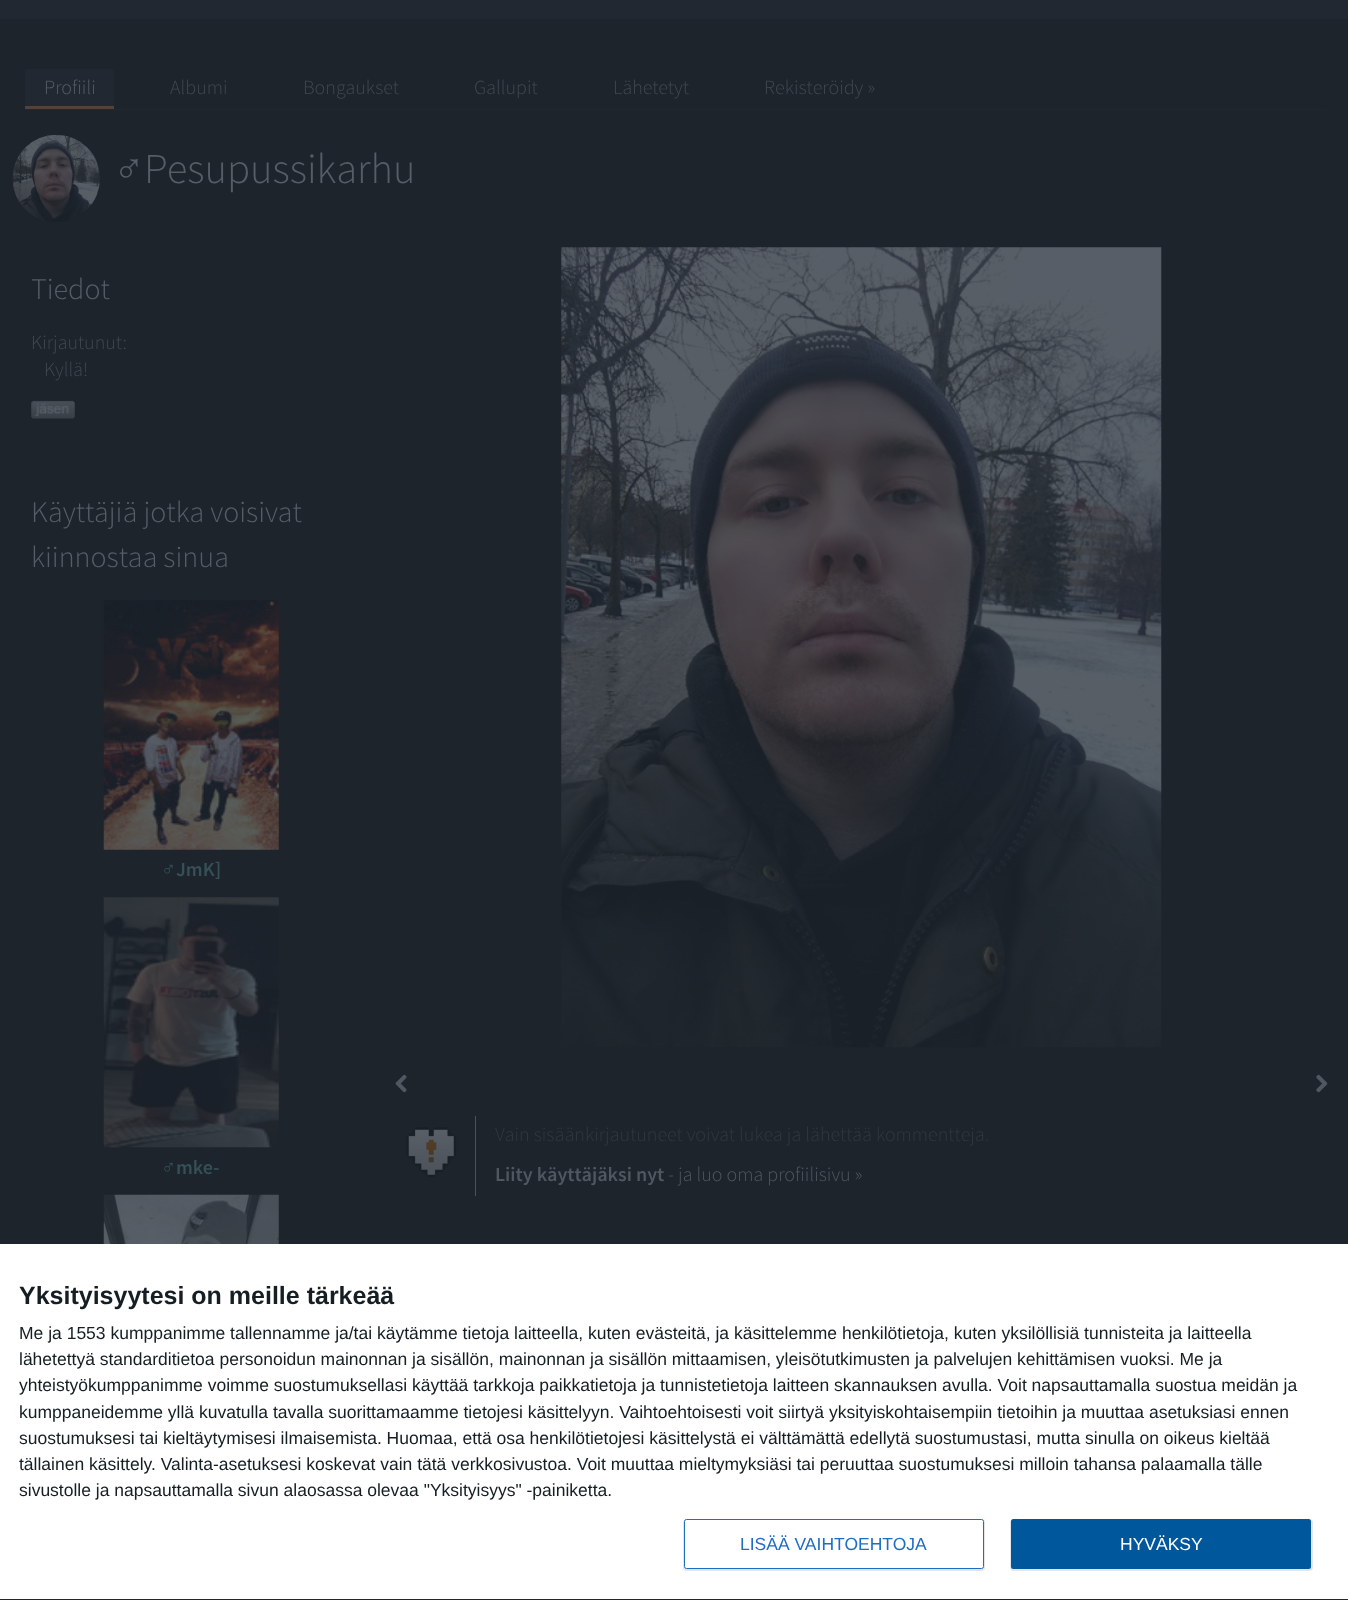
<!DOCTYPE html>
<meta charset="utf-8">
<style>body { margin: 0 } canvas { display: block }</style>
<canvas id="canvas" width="1348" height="1600"></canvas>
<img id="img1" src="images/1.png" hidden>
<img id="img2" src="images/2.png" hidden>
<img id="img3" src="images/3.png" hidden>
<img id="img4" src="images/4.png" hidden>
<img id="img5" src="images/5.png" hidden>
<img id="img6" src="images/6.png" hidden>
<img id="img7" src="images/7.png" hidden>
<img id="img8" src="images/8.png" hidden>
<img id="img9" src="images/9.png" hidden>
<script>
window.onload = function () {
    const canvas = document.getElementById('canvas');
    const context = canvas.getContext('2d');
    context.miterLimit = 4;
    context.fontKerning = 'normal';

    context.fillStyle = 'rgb(29, 36, 44)';
    context.fillRect(0, 0, 1348, 1600);
    context.fillStyle = 'rgb(33, 40, 49)';
    context.fillRect(0, 0, 1348, 19);
    context.fillStyle = 'rgb(33, 39, 49)';
    context.fillRect(25, 109, 1300, 1);
    context.fillStyle = 'rgb(33, 40, 49)';
    context.beginPath();
    context.roundRect(25, 69, 89, 40, [2.5, 2.5, 0, 0]);
    context.fill();
    context.fillStyle = 'rgb(83, 65, 61)';
    context.fillRect(25, 106, 89, 3);
    context.drawImage(document.getElementById('img1'), 12, 134, 88, 88);
    context.drawImage(document.getElementById('img2'), 31, 400, 44, 19);
    context.drawImage(document.getElementById('img3'), 103, 599, 176, 251);
    context.drawImage(document.getElementById('img4'), 103, 897, 176, 251);
    context.drawImage(document.getElementById('img5'), 103, 1194, 176, 50);
    context.drawImage(document.getElementById('img6'), 561, 247, 601, 801);
    context.drawImage(document.getElementById('img7'), 395, 1074, 12, 19);
    context.drawImage(document.getElementById('img8'), 1316, 1074, 12, 19);
    context.drawImage(document.getElementById('img9'), 406, 1127, 51, 51);
    context.fillStyle = 'rgb(76, 82, 90)';
    context.fillRect(475, 1116, 1, 80);
    context.fillStyle = 'rgb(33, 40, 49)';
    context.fillRect(0, 1599, 1348, 1);
    context.fillStyle = 'rgb(255, 255, 255)';
    context.fillRect(0, 1244, 1348, 355);
    context.fillStyle = 'rgba(0, 0, 0, 0.1)';
    context.filter = 'blur(0.5px)';
    context.beginPath();
    context.roundRect(683, 1519, 302, 52, 4);
    context.fill();
    context.filter = 'none';
    context.fillStyle = 'rgb(255, 255, 255)';
    context.beginPath();
    context.roundRect(684.5, 1519.5, 299, 49, 2);
    context.fill();
    context.strokeStyle = 'rgb(32, 109, 197)';
    context.stroke();
    context.fillStyle = 'rgba(0, 0, 0, 0.1)';
    context.filter = 'blur(0.5px)';
    context.beginPath();
    context.roundRect(1010, 1519, 303, 52, 4);
    context.fill();
    context.filter = 'none';
    context.fillStyle = 'rgb(1, 87, 155)';
    context.beginPath();
    context.roundRect(1011, 1519, 300, 50, 2.5);
    context.fill();
    context.font = '300 20px Source Sans Pro';
    context.fillStyle = 'rgb(86, 93, 103)';
    context.fillText('Profiili', 44, 94);
    context.fillStyle = 'rgb(66, 72, 81)';
    context.fillText('Albumi', 170, 94);
    context.fillText('Bongaukset', 303, 94);
    context.fillText('Gallupit', 474, 94);
    context.fillText('Lähetetyt', 613, 94);
    context.fillText('Rekisteröidy »', 764, 94);
    context.font = '42.5px Liberation Sans';
    context.fillStyle = 'rgb(86, 93, 103)';
    context.fillText('♂', 113, 183);
    context.font = '300 42.5px Source Sans Pro';
    context.fillText('Pesupussikarhu', 144, 183);
    context.font = '300 30px Source Sans Pro';
    context.fillText('Tiedot', 31, 299);
    context.font = '300 20px Source Sans Pro';
    context.fillStyle = 'rgb(66, 72, 81)';
    context.fillText('Kirjautunut:', 31, 349);
    context.fillText('Kyllä!', 44, 376);
    context.font = '300 30px Source Sans Pro';
    context.fillStyle = 'rgb(86, 93, 103)';
    context.fillText('Käyttäjiä jotka voisivat', 31, 522);
    context.fillText('kiinnostaa sinua', 31, 567);
    context.font = '20px Liberation Sans';
    context.fillStyle = 'rgb(53, 80, 87)';
    context.fillText('♂', 161, 876);
    context.font = '600 20px Source Sans Pro';
    context.fillText('JmK]', 176, 876);
    context.font = '20px Liberation Sans';
    context.fillText('♂', 161, 1174);
    context.font = '600 20px Source Sans Pro';
    context.fillText('mke-', 176, 1174);
    context.font = '300 20px Source Sans Pro';
    context.fillStyle = 'rgb(50, 56, 65)';
    context.fillText('Vain sisäänkirjautuneet voivat lukea ja lähettää kommentteja.', 495, 1141);
    context.font = '600 20px Source Sans Pro';
    context.fillStyle = 'rgb(81, 87, 96)';
    context.fillText('Liity käyttäjäksi nyt', 495, 1181);
    context.font = '300 20px Source Sans Pro';
    context.fillText('- ja luo oma profiilisivu »', 668, 1181);
    context.font = 'bold 25px Liberation Sans';
    context.fillStyle = 'rgb(20, 30, 35)';
    context.fillText('Yksityisyytesi on meille tärkeää', 19, 1304);
    context.font = '17.5px Liberation Sans';
    context.fillText('Me ja 1553 kumppanimme tallennamme ja/tai käytämme tietoja laitteella, kuten evästeitä, ja käsittelemme henkilötietoja, kuten yksilöllisiä tunnisteita ja laitteella', 19, 1339);
    context.fillText('lähetettyä standarditietoa personoidun mainonnan ja sisällön, mainonnan ja sisällön mittaamisen, yleisötutkimusten ja palvelujen kehittämisen vuoksi. Me ja', 19, 1365);
    context.fillText('yhteistyökumppanimme voimme suostumuksellasi käyttää tarkkoja paikkatietoja ja tunnistetietoja laitteen skannauksen avulla. Voit napsauttamalla suostua meidän ja', 19, 1391);
    context.fillText('kumppaneidemme yllä kuvatulla tavalla suorittamaamme tietojesi käsittelyyn. Vaihtoehtoisesti voit siirtyä yksityiskohtaisempiin tietoihin ja muuttaa asetuksiasi ennen', 19, 1418);
    context.fillText('suostumuksesi tai kieltäytymisesi ilmaisemista. Huomaa, että osa henkilötietojesi käsittelystä ei välttämättä edellytä suostumustasi, mutta sinulla on oikeus kieltää', 19, 1444);
    context.fillText('tällainen käsittely. Valinta-asetuksesi koskevat vain tätä verkkosivustoa. Voit muuttaa mieltymyksiäsi tai peruuttaa suostumuksesi milloin tahansa palaamalla tälle', 19, 1470);
    context.fillText('sivustolle ja napsauttamalla sivun alaosassa olevaa "Yksityisyys" -painiketta.', 19, 1496);
    context.fillStyle = 'rgb(32, 109, 197)';
    context.fillText('LISÄÄ VAIHTOEHTOJA', 740, 1550);
    context.fillStyle = 'rgb(255, 255, 255)';
    context.fillText('HYVÄKSY', 1120, 1550);
};
</script>
